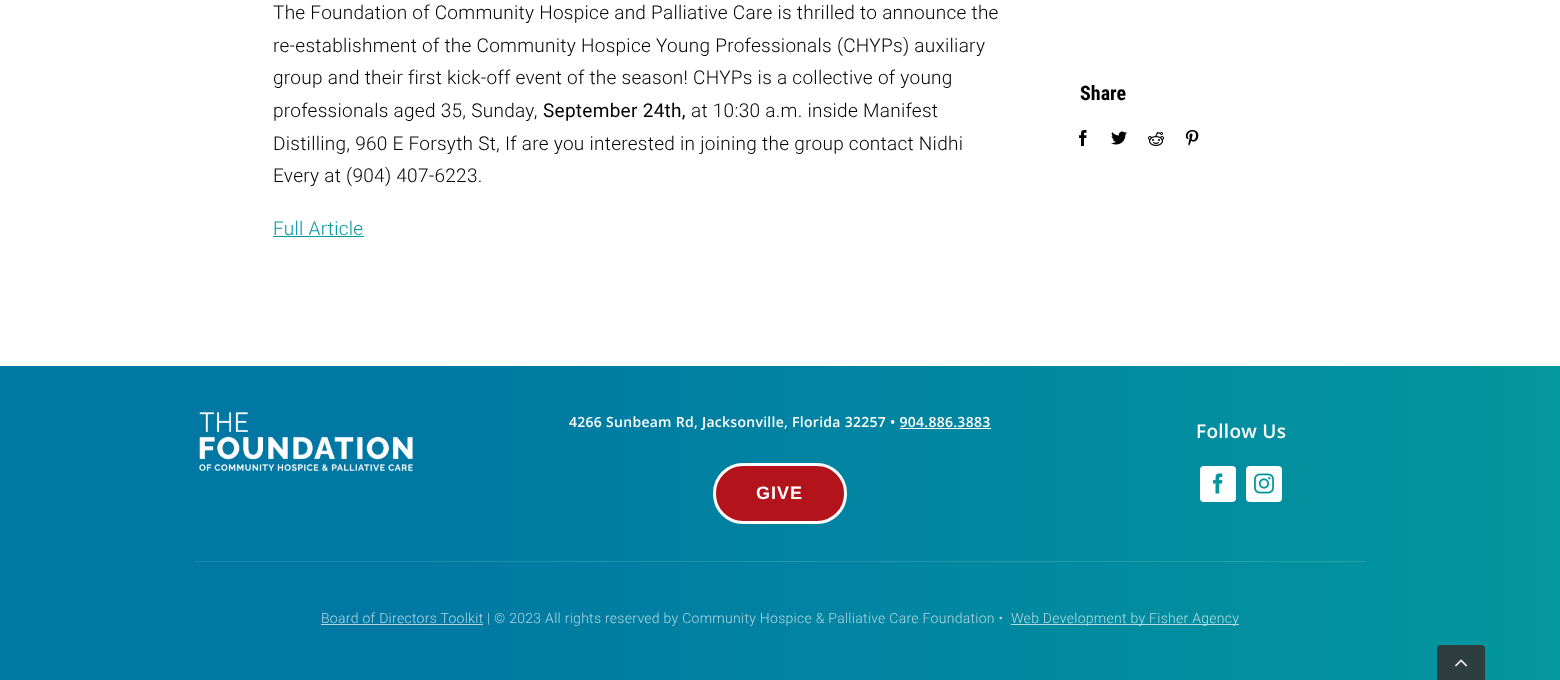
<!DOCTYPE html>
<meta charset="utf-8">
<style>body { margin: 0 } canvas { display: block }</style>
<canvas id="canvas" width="1560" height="680"></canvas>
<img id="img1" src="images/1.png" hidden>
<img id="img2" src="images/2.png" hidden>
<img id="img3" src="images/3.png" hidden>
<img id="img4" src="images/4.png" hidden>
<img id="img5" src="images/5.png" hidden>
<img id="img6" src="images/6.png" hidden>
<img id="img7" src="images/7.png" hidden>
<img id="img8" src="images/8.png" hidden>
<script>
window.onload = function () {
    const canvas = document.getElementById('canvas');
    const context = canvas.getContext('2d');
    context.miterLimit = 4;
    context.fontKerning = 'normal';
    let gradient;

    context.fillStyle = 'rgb(255, 255, 255)';
    context.fillRect(0, 0, 1560, 680);
    context.fillStyle = 'rgb(3, 152, 158)';
    context.fillRect(273, 236, 91, 1);
    context.drawImage(document.getElementById('img1'), 1079, 130, 8, 16);
    context.drawImage(document.getElementById('img2'), 1111, 131, 16, 14);
    context.drawImage(document.getElementById('img3'), 1148, 132, 16, 14);
    context.drawImage(document.getElementById('img4'), 1185, 130, 14, 16);
    gradient = context.createLinearGradient(0, 535, 1560, 535);
    gradient.addColorStop(0.26, 'rgb(0, 120, 163)');
    gradient.addColorStop(1, 'rgb(3, 151, 158)');
    context.fillStyle = gradient;
    context.fillRect(0, 366, 1560, 314);
    gradient = context.createLinearGradient(0, 535, 1560, 535);
    gradient.addColorStop(0.26, 'rgb(179, 215, 227)');
    gradient.addColorStop(1, 'rgb(179, 224, 226)');
    context.fillStyle = gradient;
    context.fillRect(1011, 624, 228, 1);
    gradient = context.createLinearGradient(0, 535, 1560, 535);
    gradient.addColorStop(0.26, 'rgb(36, 139, 176)');
    gradient.addColorStop(1, 'rgb(38, 166, 172)');
    context.fillStyle = gradient;
    context.fillRect(195, 561, 1170, 1);
    context.drawImage(document.getElementById('img5'), 199, 412, 214, 59);
    context.fillStyle = 'rgb(255, 255, 255)';
    context.fillRect(900, 428, 91, 1);
    context.fillStyle = 'rgb(179, 19, 27)';
    context.beginPath();
    context.roundRect(714.5, 464.5, 131, 58, 28.5);
    context.fill();
    context.strokeStyle = 'rgb(255, 255, 255)';
    context.lineWidth = 3;
    context.stroke();
    context.fillStyle = 'rgb(255, 255, 255)';
    context.beginPath();
    context.roundRect(1200, 466, 36, 36, 4);
    context.fill();
    context.drawImage(document.getElementById('img6'), 1213, 473, 10, 21);
    context.beginPath();
    context.roundRect(1246, 466, 36, 36, 4);
    context.fill();
    context.drawImage(document.getElementById('img7'), 1254, 473, 20, 21);
    context.fillStyle = 'rgb(179, 215, 227)';
    context.fillRect(321, 624, 162, 1);
    context.fillStyle = 'rgb(46, 61, 62)';
    context.beginPath();
    context.roundRect(1437, 645, 48, 35, [4, 4, 0, 0]);
    context.fill();
    context.drawImage(document.getElementById('img8'), 1455, 659, 13, 8);
    context.letterSpacing = '0.28px';
    context.font = '300 19px Roboto';
    context.fillStyle = 'rgb(0, 0, 0)';
    context.fillText('The Foundation of Community Hospice and Palliative Care is thrilled to announce the', 273, 19);
    context.fillText('re-establishment of the Community Hospice Young Professionals (CHYPs) auxiliary', 273, 52);
    context.fillText('group and their first kick-off event of the season! CHYPs is a collective of young', 273, 84);
    context.fillText('professionals aged 35, Sunday,', 273, 117);
    context.font = '19px Roboto';
    context.fillText('September 24th,', 543, 117);
    context.font = '300 19px Roboto';
    context.fillText('at 10:30 a.m. inside Manifest', 691, 117);
    context.fillText('Distilling, 960 E Forsyth St, If are you interested in joining the group contact Nidhi', 273, 150);
    context.fillText('Every at (904) 407-6223.', 273, 182);
    context.fillStyle = 'rgb(3, 152, 158)';
    context.fillText('Full Article', 273, 235);
    context.letterSpacing = '0px';
    context.font = 'bold 20px Roboto Condensed';
    context.fillStyle = 'rgb(0, 0, 0)';
    context.fillText('Share', 1080, 100);
    context.letterSpacing = '0.28px';
    context.font = '600 14px Open Sans';
    context.fillStyle = 'rgb(255, 255, 255)';
    context.fillText('4266 Sunbeam Rd, Jacksonville, Florida 32257 • 904.886.3883', 569, 427);
    context.letterSpacing = '1px';
    context.font = 'bold 18px Liberation Sans';
    context.fillText('GIVE', 756, 499);
    context.letterSpacing = '0.28px';
    context.font = '600 19px Open Sans';
    context.fillText('Follow Us', 1196, 438);
    context.font = '300 14px Roboto';
    context.fillStyle = 'rgb(179, 215, 227)';
    context.fillText('Board of Directors Toolkit', 321, 623);
    context.fillText('| © 2023 All rights reserved by Community Hospice & Palliative Care Foundation •', 487, 623);
    context.fillStyle = 'rgb(180, 221, 227)';
    context.fillText('Web Development by Fisher Agency', 1011, 623);
};
</script>
